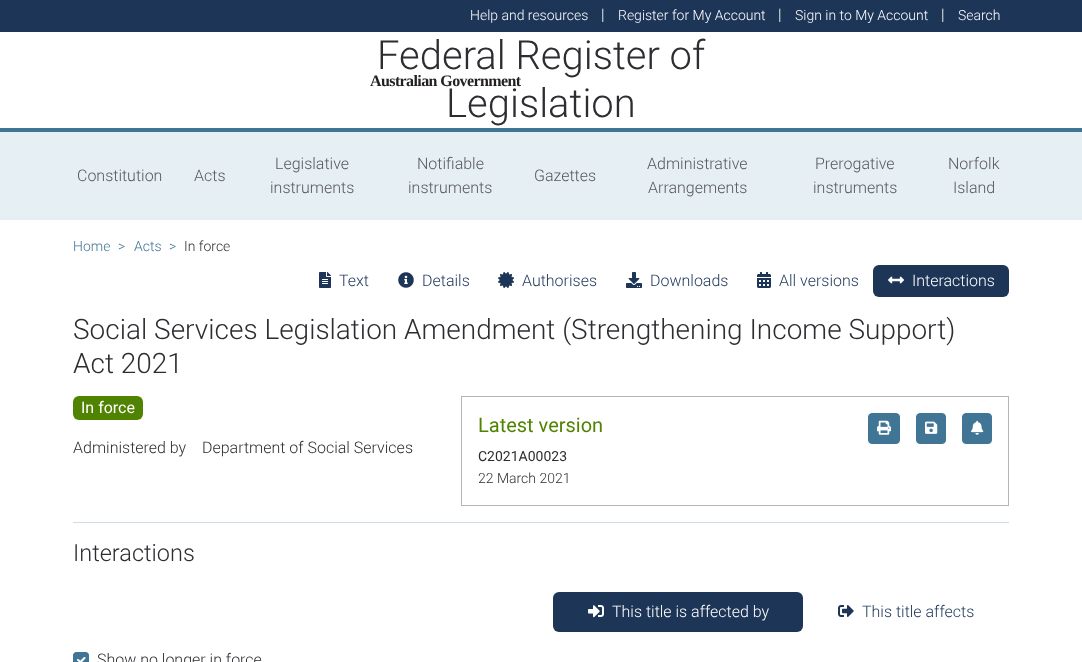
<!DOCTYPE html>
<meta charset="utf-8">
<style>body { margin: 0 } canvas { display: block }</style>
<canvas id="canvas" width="1082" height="662"></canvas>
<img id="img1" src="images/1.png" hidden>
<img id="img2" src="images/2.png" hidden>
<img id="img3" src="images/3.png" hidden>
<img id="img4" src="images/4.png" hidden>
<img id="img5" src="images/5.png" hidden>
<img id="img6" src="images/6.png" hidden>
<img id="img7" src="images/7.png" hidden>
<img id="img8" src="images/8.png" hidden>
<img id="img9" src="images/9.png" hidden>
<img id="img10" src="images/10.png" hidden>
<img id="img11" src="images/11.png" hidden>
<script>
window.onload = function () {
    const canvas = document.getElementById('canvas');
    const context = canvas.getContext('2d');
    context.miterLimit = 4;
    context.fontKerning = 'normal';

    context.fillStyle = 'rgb(255, 255, 255)';
    context.fillRect(0, 0, 1082, 662);
    context.fillStyle = 'rgb(65, 117, 149)';
    context.fillRect(0, 128, 1082, 4);
    context.fillStyle = 'rgb(29, 53, 87)';
    context.fillRect(0, 0, 1082, 32);
    context.fillStyle = 'rgb(230, 239, 244)';
    context.fillRect(0, 132, 1082, 88);
    context.drawImage(document.getElementById('img1'), 319, 272, 12, 16);
    context.drawImage(document.getElementById('img2'), 398, 272, 16, 16);
    context.drawImage(document.getElementById('img3'), 498, 272, 16, 16);
    context.drawImage(document.getElementById('img4'), 626, 272, 16, 16);
    context.drawImage(document.getElementById('img5'), 757, 272, 14, 16);
    context.fillStyle = 'rgb(29, 53, 87)';
    context.beginPath();
    context.roundRect(873, 265, 136, 32, 6);
    context.fill();
    context.drawImage(document.getElementById('img6'), 888, 276, 16, 8);
    context.fillStyle = 'rgb(81, 131, 2)';
    context.beginPath();
    context.roundRect(73, 396, 70, 24, 6);
    context.fill();
    context.strokeStyle = 'rgb(181, 181, 182)';
    context.strokeRect(461.5, 396.5, 547, 109);
    context.fillStyle = 'rgb(65, 117, 149)';
    context.beginPath();
    context.roundRect(868.5, 413.5, 31, 30, 3.5);
    context.fill();
    context.strokeStyle = 'rgb(65, 117, 149)';
    context.stroke();
    context.drawImage(document.getElementById('img7'), 877, 420, 14, 15);
    context.beginPath();
    context.roundRect(916.5, 413.5, 29, 30, 3.5);
    context.fill();
    context.stroke();
    context.drawImage(document.getElementById('img8'), 925, 421, 13, 13);
    context.beginPath();
    context.roundRect(962.5, 413.5, 29, 30, 3.5);
    context.fill();
    context.stroke();
    context.drawImage(document.getElementById('img9'), 971, 420, 13, 15);
    context.fillStyle = 'rgb(208, 221, 229)';
    context.fillRect(73, 522, 936, 1);
    context.fillStyle = 'rgb(29, 53, 87)';
    context.beginPath();
    context.roundRect(553, 592, 250, 40, 6);
    context.fill();
    context.drawImage(document.getElementById('img10'), 588, 605, 16, 13);
    context.drawImage(document.getElementById('img11'), 838, 605, 16, 12);
    context.fillStyle = 'rgb(65, 117, 149)';
    context.beginPath();
    context.roundRect(73, 652, 16, 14, 4);
    context.fill();
    context.beginPath();
    context.moveTo(78, 660);
    context.lineTo(80.5, 662);
    context.lineTo(84.5, 658);
    context.strokeStyle = 'rgb(255, 255, 255)';
    context.lineWidth = 2.1;
    context.lineCap = 'round';
    context.lineJoin = 'round';
    context.stroke();
    context.beginPath();
    context.roundRect(73.5, 652.5, 15, 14, 3.5);
    context.strokeStyle = 'rgb(65, 117, 149)';
    context.lineWidth = 1;
    context.lineJoin = 'miter';
    context.stroke();
    context.font = '300 14px Roboto';
    context.fillStyle = 'rgb(255, 255, 255)';
    context.fillText('Help and resources', 470, 20);
    context.font = '300 16px Roboto';
    context.fillText('|', 601, 20);
    context.font = '300 14px Roboto';
    context.fillText('Register for My Account', 618, 20);
    context.font = '300 16px Roboto';
    context.fillText('|', 778, 20);
    context.font = '300 14px Roboto';
    context.fillText('Sign in to My Account', 795, 20);
    context.font = '300 16px Roboto';
    context.fillText('|', 941, 20);
    context.font = '300 14px Roboto';
    context.fillText('Search', 958, 20);
    context.font = '300 40px Roboto';
    context.fillStyle = 'rgb(45, 45, 49)';
    context.fillText('Federal Register of', 377, 69);
    context.fillText('Legislation', 446, 117);
    context.letterSpacing = '-0.6px';
    context.font = 'bold 16px Liberation Serif';
    context.fillStyle = 'rgb(35, 32, 31)';
    context.fillText('Australian Government', 370, 86);
    context.letterSpacing = '0px';
    context.font = '300 16px Roboto';
    context.fillStyle = 'rgb(86, 89, 94)';
    context.fillText('Constitution', 77, 181);
    context.fillText('Acts', 194, 181);
    context.fillText('Legislative', 275, 169);
    context.fillText('instruments', 270, 193);
    context.fillText('Notifiable', 417, 169);
    context.fillText('instruments', 408, 193);
    context.fillText('Gazettes', 534, 181);
    context.fillText('Administrative', 647, 169);
    context.fillText('Arrangements', 648, 193);
    context.fillText('Prerogative', 815, 169);
    context.fillText('instruments', 813, 193);
    context.fillText('Norfolk', 948, 169);
    context.fillText('Island', 953, 193);
    context.font = '300 14px Roboto';
    context.fillStyle = 'rgb(65, 117, 149)';
    context.fillText('Home', 73, 251);
    context.fillText('>', 118, 251);
    context.fillText('Acts', 134, 251);
    context.fillText('>', 169, 251);
    context.fillStyle = 'rgb(45, 45, 49)';
    context.fillText('In force', 184, 251);
    context.font = '300 16px Roboto';
    context.fillStyle = 'rgb(29, 53, 87)';
    context.fillText('Text', 339, 286);
    context.fillText('Details', 422, 286);
    context.fillText('Authorises', 522, 286);
    context.fillText('Downloads', 650, 286);
    context.fillText('All versions', 779, 286);
    context.fillStyle = 'rgb(255, 255, 255)';
    context.fillText('Interactions', 912, 286);
    context.font = '300 28px Roboto';
    context.fillStyle = 'rgb(45, 45, 49)';
    context.fillText('Social Services Legislation Amendment (Strengthening Income Support)', 73, 339);
    context.fillText('Act 2021', 73, 373);
    context.font = '16px Roboto';
    context.fillStyle = 'rgb(255, 255, 255)';
    context.fillText('In force', 81, 413);
    context.font = '300 16px Roboto';
    context.fillStyle = 'rgb(45, 45, 49)';
    context.fillText('Administered by', 73, 453);
    context.fillText('Department of Social Services', 202, 453);
    context.font = '20px Roboto';
    context.fillStyle = 'rgb(81, 131, 2)';
    context.fillText('Latest version', 478, 432);
    context.font = '14px Roboto';
    context.fillStyle = 'rgb(45, 45, 49)';
    context.fillText('C2021A00023', 478, 461);
    context.font = '300 14px Roboto';
    context.fillText('22 March 2021', 478, 483);
    context.font = '300 23.5px Roboto';
    context.fillText('Interactions', 73, 561);
    context.font = '300 16px Roboto';
    context.fillStyle = 'rgb(255, 255, 255)';
    context.fillText('This title is affected by', 612, 617);
    context.fillStyle = 'rgb(29, 53, 87)';
    context.fillText('This title affects', 862, 617);
    context.fillStyle = 'rgb(45, 45, 49)';
    context.fillText('Show no longer in force', 97, 665);
};
</script>
